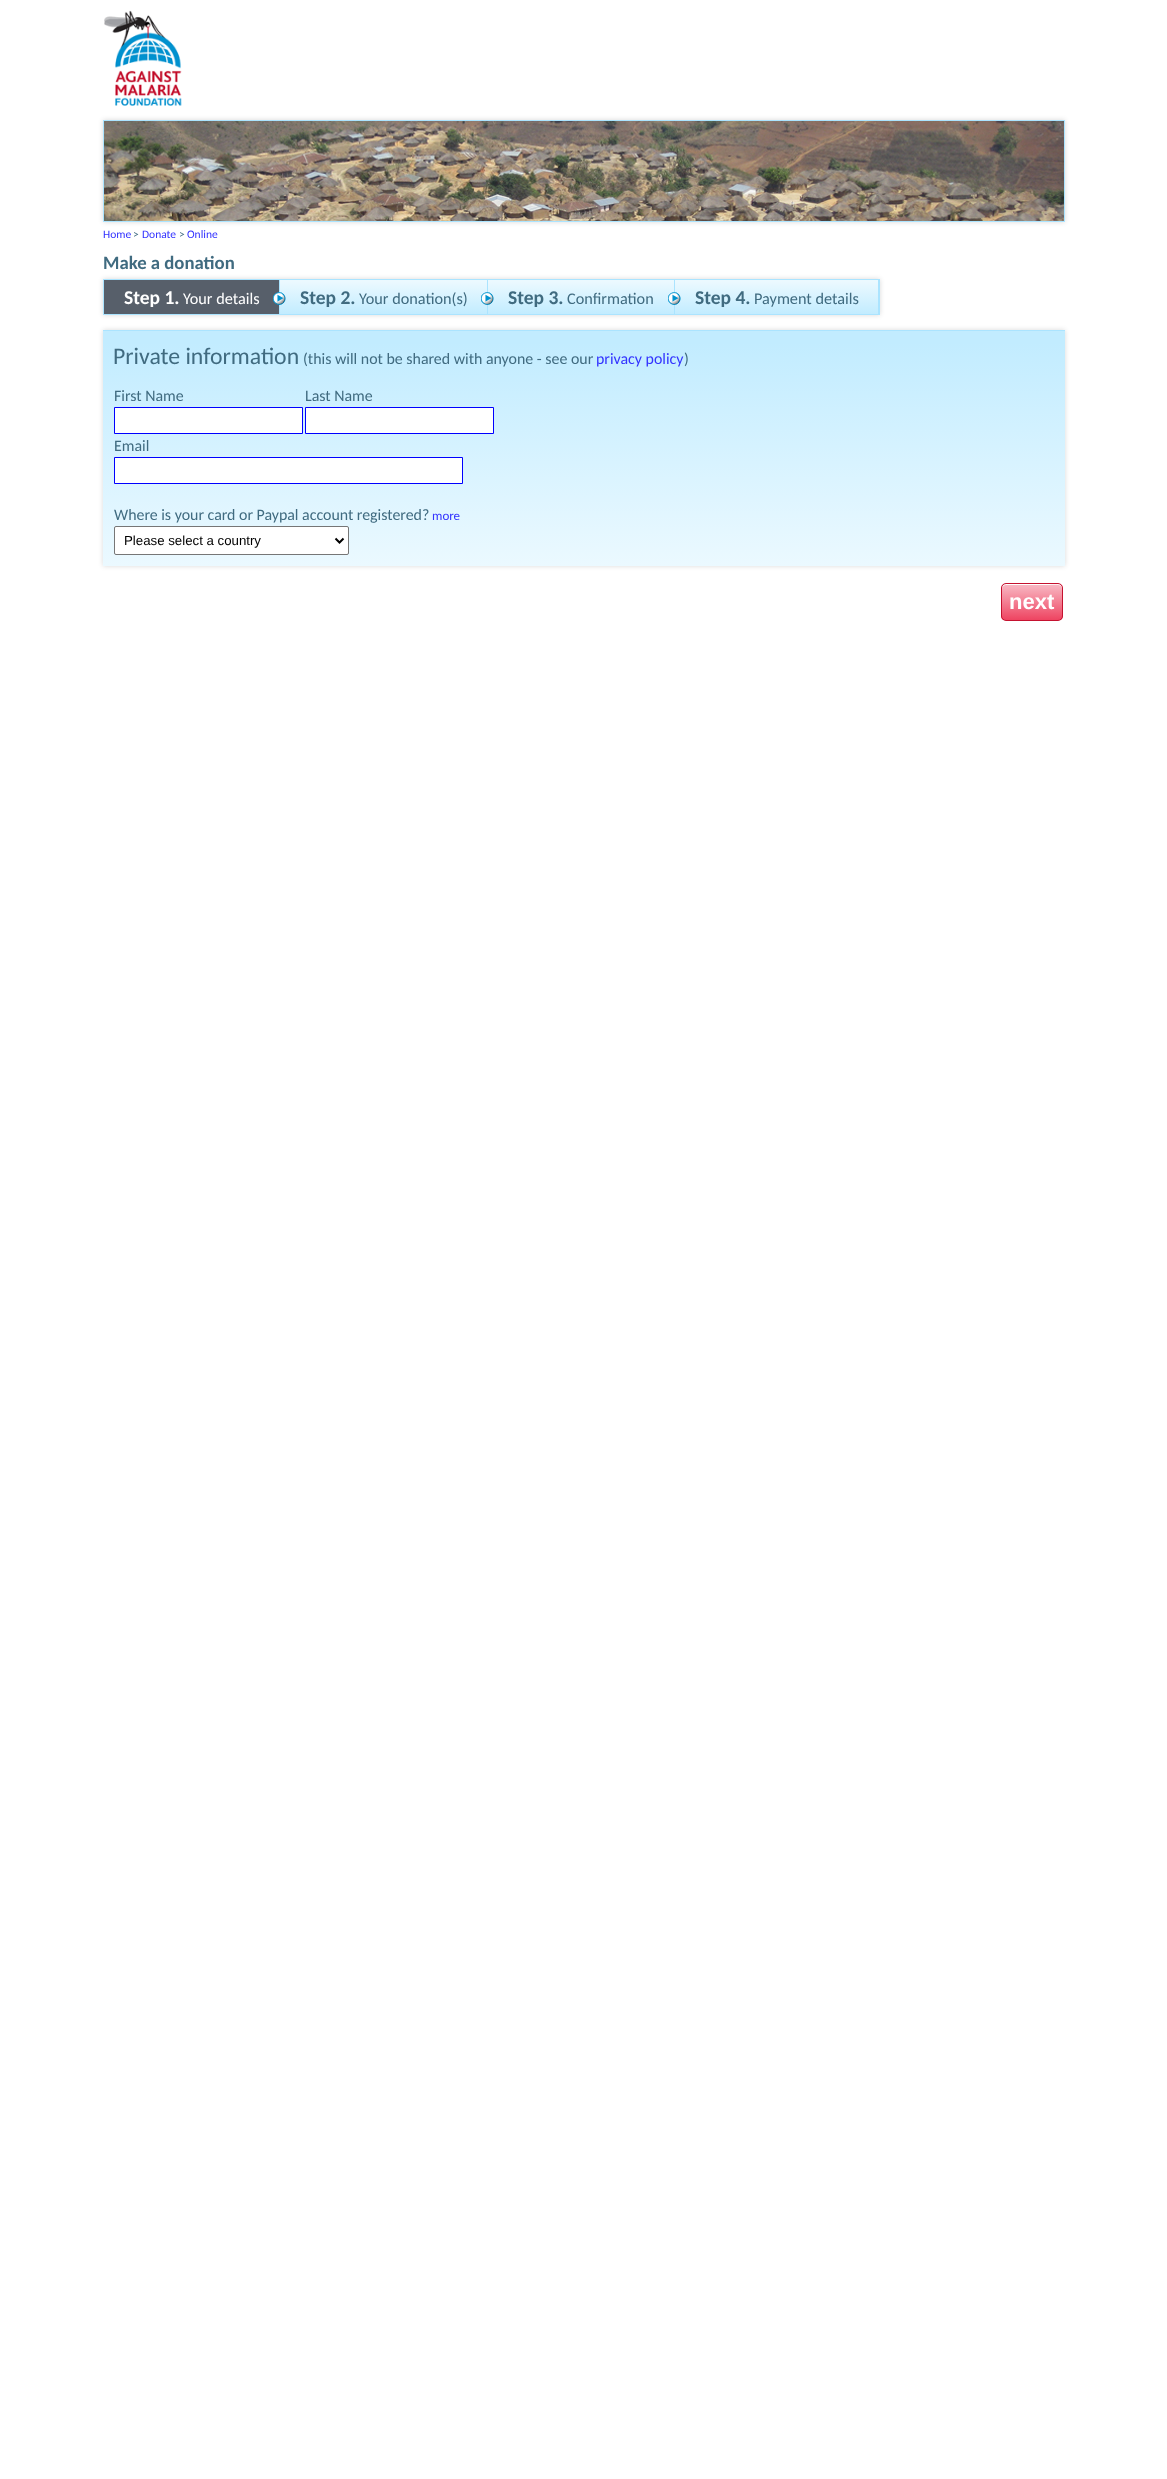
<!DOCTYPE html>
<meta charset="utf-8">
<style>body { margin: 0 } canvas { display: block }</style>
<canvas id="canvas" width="1167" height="2479"></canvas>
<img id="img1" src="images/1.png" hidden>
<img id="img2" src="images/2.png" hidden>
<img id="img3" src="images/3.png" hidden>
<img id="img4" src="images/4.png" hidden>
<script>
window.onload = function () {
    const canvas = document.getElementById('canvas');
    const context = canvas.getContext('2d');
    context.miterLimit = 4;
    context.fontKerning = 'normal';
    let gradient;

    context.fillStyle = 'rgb(255, 255, 255)';
    context.fillRect(0, 0, 1167, 2479);
    context.drawImage(document.getElementById('img1'), 104, 10, 78, 96);
    context.fillStyle = 'rgba(0, 0, 0, 0.15)';
    context.filter = 'blur(2.5px)';
    context.beginPath();
    context.rect(103, 120, 962, 102);
    context.fill();
    context.filter = 'none';
    context.strokeStyle = 'rgb(171, 228, 255)';
    context.strokeRect(103.5, 120.5, 961, 101);
    context.drawImage(document.getElementById('img2'), 104, 121, 960, 100);
    context.filter = 'blur(2.5px)';
    context.beginPath();
    context.rect(103, 279, 777, 36);
    context.fill();
    context.filter = 'none';
    gradient = context.createLinearGradient(104, 280, 104, 314);
    gradient.addColorStop(0.05, 'rgb(235, 249, 255)');
    gradient.addColorStop(1, 'rgb(194, 236, 255)');
    context.fillStyle = gradient;
    context.fillRect(280, 280, 598, 34);
    context.strokeRect(103.5, 279.5, 776, 35);
    context.fillStyle = 'rgb(87, 95, 106)';
    context.fillRect(104, 280, 175, 34);
    context.fillStyle = 'rgb(171, 228, 255)';
    context.fillRect(279, 280, 1, 34);
    context.fillRect(487, 280, 1, 34);
    context.drawImage(document.getElementById('img3'), 273, 292, 13, 13);
    context.fillRect(674, 280, 1, 34);
    context.drawImage(document.getElementById('img4'), 481, 292, 13, 13);
    context.fillRect(878, 280, 1, 34);
    context.drawImage(document.getElementById('img4'), 668, 292, 13, 13);
    context.fillStyle = 'rgba(0, 0, 0, 0.15)';
    context.filter = 'blur(2.5px)';
    context.beginPath();
    context.rect(103, 330, 962, 236);
    context.fill();
    context.filter = 'none';
    gradient = context.createLinearGradient(103, 331, 103, 566);
    gradient.addColorStop(0.05, 'rgb(194, 236, 255)');
    gradient.addColorStop(1, 'rgb(235, 249, 255)');
    context.fillStyle = gradient;
    context.fillRect(103, 331, 962, 235);
    context.fillStyle = 'rgb(171, 228, 255)';
    context.fillRect(103, 330, 962, 1);
    context.fillStyle = 'rgb(255, 255, 255)';
    context.beginPath();
    context.rect(114.5, 407.5, 188, 26);
    context.fill();
    context.strokeStyle = 'rgb(0, 0, 255)';
    context.stroke();
    context.beginPath();
    context.rect(305.5, 407.5, 188, 26);
    context.fill();
    context.stroke();
    context.beginPath();
    context.rect(114.5, 457.5, 348, 26);
    context.fill();
    context.stroke();
    context.beginPath();
    context.roundRect(114.5, 526.5, 234, 28, 1.5);
    context.fill();
    context.strokeStyle = 'rgb(118, 118, 118)';
    context.stroke();
    context.beginPath();
    context.moveTo(335.5, 538.5);
    context.lineTo(339.5, 542.5);
    context.lineTo(343.5, 538.5);
    context.strokeStyle = 'rgb(0, 0, 0)';
    context.lineWidth = 2;
    context.stroke();
    context.save();
    context.beginPath();
    context.roundRect(1001, 583, 62, 38, 5);
    context.clip();
    gradient = context.createLinearGradient(1002, 584, 1002, 620);
    gradient.addColorStop(0.05, 'rgb(248, 180, 192)');
    gradient.addColorStop(1, 'rgb(238, 68, 97)');
    context.fillStyle = gradient;
    context.fillRect(1001, 584, 62, 36);
    context.restore();
    context.beginPath();
    context.moveTo(1006, 585);
    context.lineTo(1041, 585);
    context.bezierCurveTo(1053, 585, 1059, 584, 1061, 586);
    context.bezierCurveTo(1061, 587, 1062, 588, 1062, 589);
    context.bezierCurveTo(1062, 582, 1055, 584, 1049, 584);
    context.lineTo(1015, 584);
    context.bezierCurveTo(1010, 584, 1002, 582, 1002, 589);
    context.bezierCurveTo(1002, 587, 1004, 585, 1006, 585);
    context.closePath();
    context.moveTo(1002, 618);
    context.lineTo(1002, 612);
    context.closePath();
    context.fill('evenodd');
    context.beginPath();
    context.roundRect(1001.5, 583.5, 61, 37, 4.5);
    context.strokeStyle = 'rgb(197, 18, 48)';
    context.lineWidth = 1;
    context.stroke();
    context.font = '11.5px Carlito';
    context.fillStyle = 'rgb(51, 51, 255)';
    context.fillText('Home', 103, 238);
    context.fillStyle = 'rgb(64, 107, 128)';
    context.fillText('>', 133, 238);
    context.fillStyle = 'rgb(51, 51, 255)';
    context.fillText('Donate', 142, 238);
    context.fillStyle = 'rgb(64, 107, 128)';
    context.fillText('>', 179, 238);
    context.fillStyle = 'rgb(51, 51, 255)';
    context.fillText('Online', 187, 238);
    context.font = 'bold 18.75px Carlito';
    context.fillStyle = 'rgb(64, 107, 128)';
    context.fillText('Make a donation', 103, 269);
    context.font = 'bold 19.5px Carlito';
    context.fillStyle = 'rgb(255, 255, 255)';
    context.fillText('Step 1.', 124, 304);
    context.font = '16.25px Carlito';
    context.fillText('Your details', 183, 304);
    context.font = 'bold 19.5px Carlito';
    context.fillStyle = 'rgb(64, 107, 128)';
    context.fillText('Step 2.', 300, 304);
    context.font = '16.25px Carlito';
    context.fillText('Your donation(s)', 359, 304);
    context.font = 'bold 19.5px Carlito';
    context.fillText('Step 3.', 508, 304);
    context.font = '16.25px Carlito';
    context.fillText('Confirmation', 567, 304);
    context.font = 'bold 19.5px Carlito';
    context.fillText('Step 4.', 695, 304);
    context.font = '16.25px Carlito';
    context.fillText('Payment details', 754, 304);
    context.font = '23.75px Carlito';
    context.fillText('Private information', 113, 364);
    context.font = '15.9px Carlito';
    context.fillText('(this will not be shared with anyone - see our', 303, 364);
    context.fillStyle = 'rgb(51, 51, 255)';
    context.fillText('privacy policy', 596, 364);
    context.fillStyle = 'rgb(64, 107, 128)';
    context.fillText(')', 684, 364);
    context.fillText('First Name', 114, 401);
    context.fillText('Last Name', 305, 401);
    context.fillText('Email', 114, 451);
    context.fillText('Where is your card or Paypal account registered?', 114, 520);
    context.font = '13px Carlito';
    context.fillStyle = 'rgb(51, 51, 255)';
    context.fillText('more', 432, 520);
    context.font = '13.25px Liberation Sans';
    context.fillStyle = 'rgb(0, 0, 0)';
    context.fillText('Please select a country', 124, 545);
    context.font = 'bold 22px Liberation Sans';
    context.fillStyle = 'rgb(255, 255, 255)';
    context.fillText('next', 1009, 609);
};
</script>
